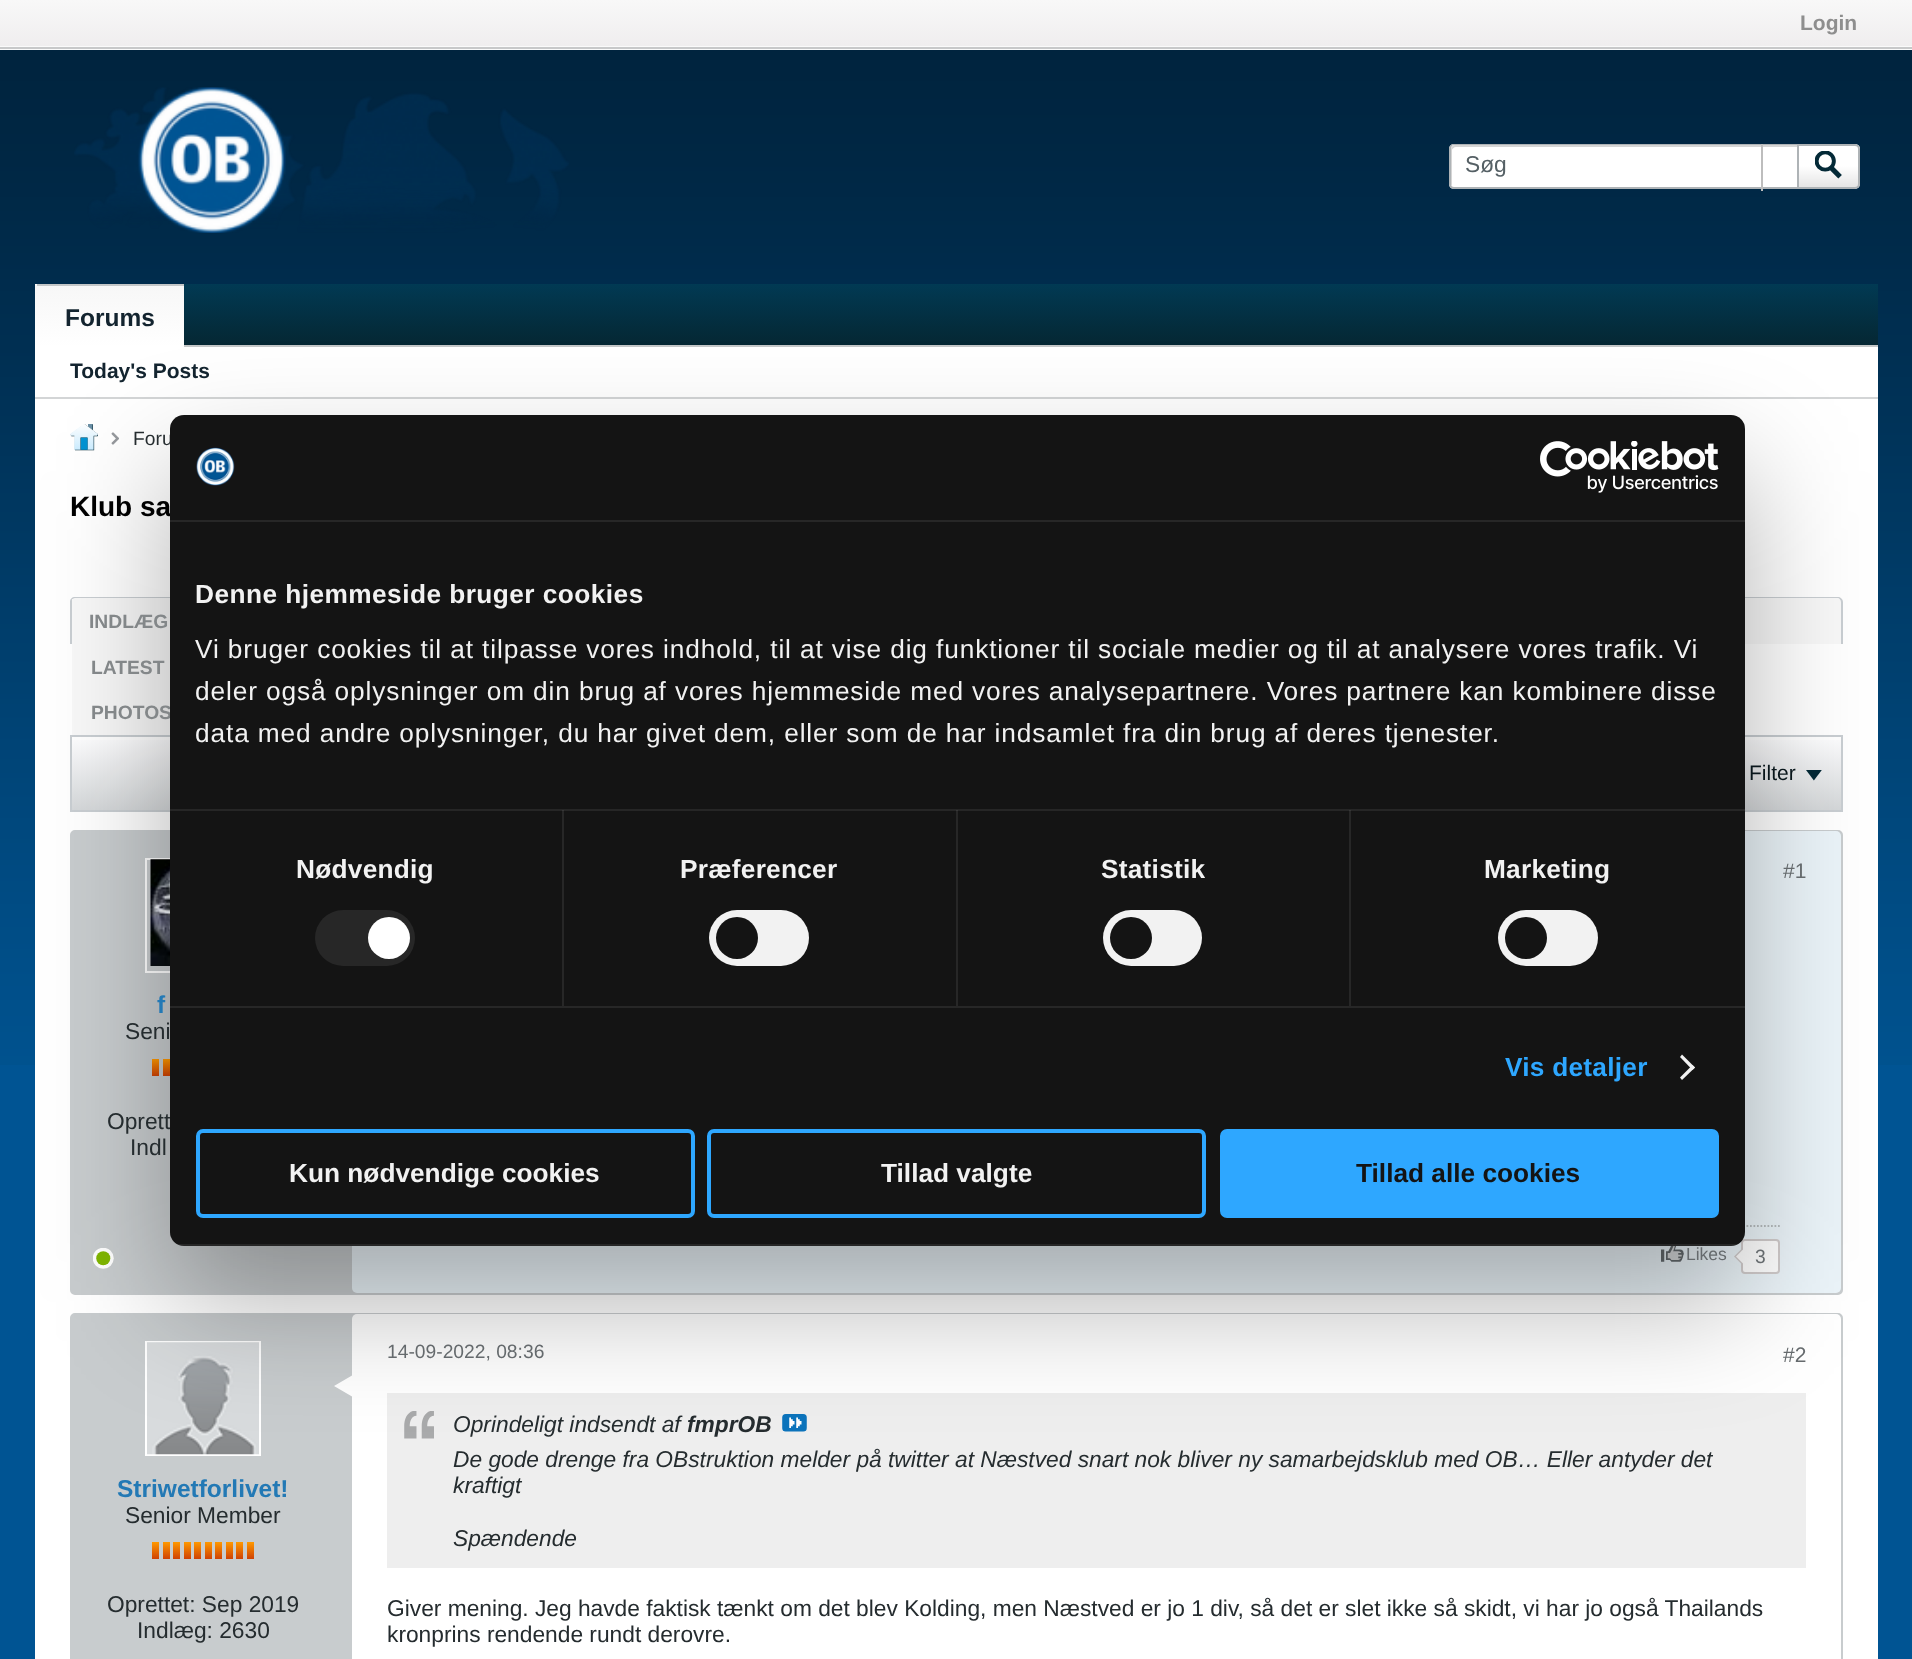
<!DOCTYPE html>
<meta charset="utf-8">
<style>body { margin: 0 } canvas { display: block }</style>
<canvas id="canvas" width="1912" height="1659"></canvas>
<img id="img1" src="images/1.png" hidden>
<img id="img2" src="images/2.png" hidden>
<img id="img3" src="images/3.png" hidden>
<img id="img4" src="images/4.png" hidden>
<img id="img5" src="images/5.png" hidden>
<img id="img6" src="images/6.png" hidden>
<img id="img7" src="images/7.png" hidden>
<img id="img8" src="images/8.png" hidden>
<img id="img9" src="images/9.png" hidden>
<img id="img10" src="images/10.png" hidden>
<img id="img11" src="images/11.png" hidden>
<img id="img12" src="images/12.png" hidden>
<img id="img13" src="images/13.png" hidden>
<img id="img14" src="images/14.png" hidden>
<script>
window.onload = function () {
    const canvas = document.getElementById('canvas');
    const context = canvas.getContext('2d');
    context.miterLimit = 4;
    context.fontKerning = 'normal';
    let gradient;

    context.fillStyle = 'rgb(0, 84, 147)';
    context.fillRect(0, 0, 1912, 1659);
    context.drawImage(document.getElementById('img1'), 0, 50, 1912, 1015);
    gradient = context.createLinearGradient(956, 0, 956, 49);
    gradient.addColorStop(0, 'rgb(248, 248, 248)');
    gradient.addColorStop(1, 'rgb(239, 237, 238)');
    context.fillStyle = gradient;
    context.fillRect(0, 0, 1912, 46);
    context.fillStyle = 'rgb(250, 250, 250)';
    context.fillRect(0, 46, 1912, 4);
    context.fillStyle = 'rgb(199, 200, 201)';
    context.fillRect(0, 47, 1912, 2);
    context.drawImage(document.getElementById('img2'), 74, 87, 495, 146);
    context.fillStyle = 'rgb(255, 255, 255)';
    context.beginPath();
    context.roundRect(1449, 144, 348, 45, [5, 0, 0, 5]);
    context.fill();
    context.fillStyle = 'rgb(213, 213, 213)';
    context.beginPath();
    context.moveTo(1456, 147);
    context.lineTo(1797, 147);
    context.lineTo(1797, 145);
    context.lineTo(1455, 145);
    context.bezierCurveTo(1453, 145, 1451, 147, 1451, 149);
    context.lineTo(1451, 183);
    context.bezierCurveTo(1451, 184, 1451, 185, 1452, 186);
    context.lineTo(1452, 150);
    context.bezierCurveTo(1452, 149, 1454, 147, 1456, 147);
    context.closePath();
    context.fill();
    context.fillStyle = 'rgb(174, 179, 182)';
    context.beginPath();
    context.moveTo(1454, 144);
    context.lineTo(1797, 144);
    context.lineTo(1797, 189);
    context.lineTo(1454, 189);
    context.bezierCurveTo(1451, 189, 1449, 187, 1449, 184);
    context.lineTo(1449, 149);
    context.bezierCurveTo(1449, 146, 1451, 144, 1454, 144);
    context.closePath();
    context.moveTo(1454, 145);
    context.lineTo(1797, 145);
    context.lineTo(1797, 187);
    context.lineTo(1454, 187);
    context.bezierCurveTo(1452, 187, 1451, 186, 1451, 184);
    context.lineTo(1451, 149);
    context.bezierCurveTo(1451, 147, 1452, 145, 1454, 145);
    context.closePath();
    context.fill('evenodd');
    context.fillStyle = 'rgb(189, 189, 189)';
    context.fillRect(1761, 144, 2, 47);
    context.fillStyle = 'rgb(255, 255, 255)';
    context.beginPath();
    context.roundRect(1797, 144, 63, 45, [0, 5, 5, 0]);
    context.fill();
    context.save();
    context.beginPath();
    context.roundRect(1797, 144, 63, 45, [0, 5, 5, 0]);
    context.clip();
    gradient = context.createLinearGradient(1829, 187, 1829, 145);
    gradient.addColorStop(0, 'rgba(0, 0, 0, 0.1)');
    gradient.addColorStop(0.5, 'rgba(0, 0, 0, 0)');
    gradient.addColorStop(0.5, 'rgba(255, 255, 255, 0)');
    gradient.addColorStop(1, 'rgba(255, 255, 255, 0.7)');
    context.fillStyle = gradient;
    context.fillRect(1799, 145, 61, 42);
    context.restore();
    context.beginPath();
    context.roundRect(1798, 145, 61, 43, [0, 4, 4, 0]);
    context.strokeStyle = 'rgb(174, 179, 182)';
    context.lineWidth = 2;
    context.stroke();
    context.drawImage(document.getElementById('img3'), 1815, 151, 27, 28);
    gradient = context.createLinearGradient(956, 283, 956, 345);
    gradient.addColorStop(0, 'rgb(1, 58, 84)');
    gradient.addColorStop(1, 'rgb(5, 39, 51)');
    context.fillStyle = gradient;
    context.fillRect(35, 284, 1843, 61);
    context.fillStyle = 'rgb(196, 199, 200)';
    context.fillRect(184, 345, 1694, 2);
    gradient = context.createLinearGradient(109, 224, 109, 285);
    gradient.addColorStop(0, 'rgb(247, 247, 247)');
    gradient.addColorStop(1, 'rgb(255, 255, 255)');
    context.fillStyle = gradient;
    context.fillRect(35, 284, 2, 1);
    gradient = context.createLinearGradient(109, 285, 109, 347);
    gradient.addColorStop(0, 'rgb(247, 247, 247)');
    gradient.addColorStop(1, 'rgb(255, 255, 255)');
    context.fillStyle = gradient;
    context.fillRect(35, 285, 149, 62);
    context.fillStyle = 'rgb(196, 199, 200)';
    context.fillRect(37, 284, 147, 2);
    context.fillStyle = 'rgb(255, 255, 255)';
    context.fillRect(35, 347, 1843, 50);
    context.fillStyle = 'rgb(211, 213, 214)';
    context.fillRect(35, 397, 1843, 2);
    context.fillStyle = 'rgb(255, 255, 255)';
    context.fillRect(35, 399, 1843, 1260);
    context.drawImage(document.getElementById('img4'), 70, 424, 28, 27);
    context.drawImage(document.getElementById('img5'), 111, 432, 8, 13);
    context.fillStyle = 'rgb(248, 248, 248)';
    context.beginPath();
    context.roundRect(70, 597, 1773, 47, [5, 5, 0, 0]);
    context.fill();
    context.fillStyle = 'rgb(201, 206, 210)';
    context.beginPath();
    context.moveTo(75, 597);
    context.lineTo(1838, 597);
    context.bezierCurveTo(1840, 597, 1843, 599, 1843, 602);
    context.lineTo(1843, 644);
    context.lineTo(70, 644);
    context.lineTo(70, 602);
    context.bezierCurveTo(70, 599, 72, 597, 75, 597);
    context.closePath();
    context.moveTo(75, 598);
    context.lineTo(1838, 598);
    context.bezierCurveTo(1839, 598, 1841, 600, 1841, 602);
    context.lineTo(1841, 644);
    context.lineTo(72, 644);
    context.lineTo(72, 602);
    context.bezierCurveTo(72, 600, 73, 598, 75, 598);
    context.closePath();
    context.fill('evenodd');
    context.fillStyle = 'rgb(248, 248, 248)';
    context.fillRect(72, 599, 98, 136);
    gradient = context.createLinearGradient(956, 737, 956, 810);
    gradient.addColorStop(0, 'rgb(254, 254, 255)');
    gradient.addColorStop(1, 'rgb(213, 216, 218)');
    context.fillStyle = gradient;
    context.fillRect(72, 740, 1769, 70);
    context.strokeStyle = 'rgb(201, 206, 210)';
    context.strokeRect(71, 736, 1771, 75);
    context.drawImage(document.getElementById('img6'), 1806, 770, 16, 11);
    context.fillStyle = 'rgb(200, 204, 206)';
    context.beginPath();
    context.roundRect(71, 831, 1771, 463, 4);
    context.fill();
    context.strokeStyle = 'rgb(200, 204, 206)';
    context.stroke();
    context.strokeStyle = 'rgb(255, 255, 255)';
    context.strokeRect(146, 859, 114, 113);
    context.drawImage(document.getElementById('img7'), 150, 859, 20, 107);
    gradient = context.createLinearGradient(156, 1059, 156, 1076);
    gradient.addColorStop(0, 'rgb(255, 153, 0)');
    gradient.addColorStop(1, 'rgb(207, 65, 4)');
    context.fillStyle = gradient;
    context.fillRect(152, 1059, 7, 17);
    gradient = context.createLinearGradient(166, 1059, 166, 1076);
    gradient.addColorStop(0, 'rgb(255, 153, 0)');
    gradient.addColorStop(1, 'rgb(207, 65, 4)');
    context.fillStyle = gradient;
    context.fillRect(163, 1059, 7, 17);
    context.drawImage(document.getElementById('img8'), 93, 1248, 21, 21);
    context.fillStyle = 'rgb(235, 244, 249)';
    context.beginPath();
    context.roundRect(352, 831, 1489, 462, 5);
    context.fill();
    context.beginPath();
    context.moveTo(413, 1226);
    context.lineTo(1780, 1226);
    context.strokeStyle = 'rgb(183, 188, 190)';
    context.lineWidth = 1.8;
    context.setLineDash([1.75, 1.75]);
    context.stroke();
    context.drawImage(document.getElementById('img9'), 1661, 1246, 23, 16);
    context.fillStyle = 'rgb(255, 255, 255)';
    context.beginPath();
    context.roundRect(1742, 1240, 37, 33, 3);
    context.fill();
    context.strokeStyle = 'rgb(209, 204, 204)';
    context.lineWidth = 2;
    context.setLineDash([]);
    context.stroke();
    context.fillStyle = 'rgb(209, 204, 204)';
    context.beginPath();
    context.moveTo(1741, 1249.5);
    context.lineTo(1741, 1263.5);
    context.lineTo(1734, 1256.5);
    context.closePath();
    context.fill();
    context.fillStyle = 'rgb(255, 255, 255)';
    context.beginPath();
    context.moveTo(1743, 1249.5);
    context.lineTo(1743, 1263.5);
    context.lineTo(1736, 1256.5);
    context.closePath();
    context.fill();
    context.fillStyle = 'rgb(200, 204, 206)';
    context.beginPath();
    context.roundRect(71, 1314, 1771, 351, 4);
    context.fill();
    context.strokeStyle = 'rgb(200, 204, 206)';
    context.stroke();
    context.strokeStyle = 'rgb(255, 255, 255)';
    context.strokeRect(146, 1342, 114, 113);
    context.drawImage(document.getElementById('img10'), 147, 1342, 112, 113);
    gradient = context.createLinearGradient(156, 1542, 156, 1559);
    gradient.addColorStop(0, 'rgb(255, 153, 0)');
    gradient.addColorStop(1, 'rgb(207, 65, 4)');
    context.fillStyle = gradient;
    context.fillRect(152, 1542, 7, 17);
    gradient = context.createLinearGradient(166, 1542, 166, 1559);
    gradient.addColorStop(0, 'rgb(255, 153, 0)');
    gradient.addColorStop(1, 'rgb(207, 65, 4)');
    context.fillStyle = gradient;
    context.fillRect(163, 1542, 7, 17);
    gradient = context.createLinearGradient(177, 1542, 177, 1559);
    gradient.addColorStop(0, 'rgb(255, 153, 0)');
    gradient.addColorStop(1, 'rgb(207, 65, 4)');
    context.fillStyle = gradient;
    context.fillRect(173, 1542, 7, 17);
    gradient = context.createLinearGradient(187, 1542, 187, 1559);
    gradient.addColorStop(0, 'rgb(255, 153, 0)');
    gradient.addColorStop(1, 'rgb(207, 65, 4)');
    context.fillStyle = gradient;
    context.fillRect(184, 1542, 7, 17);
    gradient = context.createLinearGradient(198, 1542, 198, 1559);
    gradient.addColorStop(0, 'rgb(255, 153, 0)');
    gradient.addColorStop(1, 'rgb(207, 65, 4)');
    context.fillStyle = gradient;
    context.fillRect(194, 1542, 7, 17);
    gradient = context.createLinearGradient(208, 1542, 208, 1559);
    gradient.addColorStop(0, 'rgb(255, 153, 0)');
    gradient.addColorStop(1, 'rgb(207, 65, 4)');
    context.fillStyle = gradient;
    context.fillRect(205, 1542, 7, 17);
    gradient = context.createLinearGradient(219, 1542, 219, 1559);
    gradient.addColorStop(0, 'rgb(255, 153, 0)');
    gradient.addColorStop(1, 'rgb(207, 65, 4)');
    context.fillStyle = gradient;
    context.fillRect(215, 1542, 7, 17);
    gradient = context.createLinearGradient(229, 1542, 229, 1559);
    gradient.addColorStop(0, 'rgb(255, 153, 0)');
    gradient.addColorStop(1, 'rgb(207, 65, 4)');
    context.fillStyle = gradient;
    context.fillRect(226, 1542, 7, 17);
    gradient = context.createLinearGradient(240, 1542, 240, 1559);
    gradient.addColorStop(0, 'rgb(255, 153, 0)');
    gradient.addColorStop(1, 'rgb(207, 65, 4)');
    context.fillStyle = gradient;
    context.fillRect(236, 1542, 7, 17);
    gradient = context.createLinearGradient(250, 1542, 250, 1559);
    gradient.addColorStop(0, 'rgb(255, 153, 0)');
    gradient.addColorStop(1, 'rgb(207, 65, 4)');
    context.fillStyle = gradient;
    context.fillRect(247, 1542, 7, 17);
    context.fillStyle = 'rgb(255, 255, 255)';
    context.beginPath();
    context.roundRect(352, 1314, 1489, 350, 5);
    context.fill();
    context.beginPath();
    context.moveTo(352, 1375.5);
    context.lineTo(352, 1396.5);
    context.lineTo(334, 1386);
    context.closePath();
    context.fill();
    context.fillStyle = 'rgb(238, 238, 238)';
    context.fillRect(387, 1393, 1419, 175);
    context.drawImage(document.getElementById('img11'), 404, 1411, 30, 28);
    context.drawImage(document.getElementById('img12'), 782, 1414, 25, 18);
    context.fillStyle = 'rgba(0, 0, 0, 0.3)';
    context.filter = 'blur(59.5px)';
    context.beginPath();
    context.roundRect(170, 471, 1575, 831, 14);
    context.fill();
    context.filter = 'none';
    context.font = 'bold 21px Liberation Sans';
    context.fillStyle = 'rgb(142, 142, 142)';
    context.fillText('Login', 1800, 30);
    context.font = '22.75px Liberation Sans';
    context.fillStyle = 'rgb(85, 96, 101)';
    context.fillText('Søg', 1465, 172);
    context.font = 'bold 24.5px Liberation Sans';
    context.fillStyle = 'rgb(19, 36, 47)';
    context.fillText('Forums', 65, 326);
    context.font = 'bold 21px Liberation Sans';
    context.fillText('Today\'s Posts', 70, 378);
    context.font = '19.25px Liberation Sans';
    context.fillStyle = 'rgb(37, 44, 47)';
    context.fillText('Foru', 133, 445);
    context.font = 'bold 28px Liberation Sans';
    context.fillStyle = 'rgb(0, 0, 0)';
    context.fillText('Klub sa', 70, 516);
    context.font = 'bold 19.25px Liberation Sans';
    context.fillStyle = 'rgb(131, 135, 137)';
    context.fillText('INDLÆG', 89, 628);
    context.fillText('LATEST', 91, 674);
    context.fillText('PHOTOS', 91, 719);
    context.font = '21px Liberation Sans';
    context.fillStyle = 'rgb(9, 22, 27)';
    context.fillText('Filter', 1749, 780);
    context.font = 'bold 24.5px Liberation Sans';
    context.fillStyle = 'rgb(35, 121, 181)';
    context.fillText('f', 157, 1013);
    context.font = '22.75px Liberation Sans';
    context.fillStyle = 'rgb(37, 44, 47)';
    context.fillText('Seni', 125, 1039);
    context.fillText('Oprett', 107, 1129);
    context.fillText('Indl', 130, 1155);
    context.font = '21px Liberation Sans';
    context.fillStyle = 'rgb(101, 106, 109)';
    context.fillText('#1', 1783, 878);
    context.font = '17.5px Liberation Sans';
    context.fillText('Likes', 1686, 1260);
    context.font = '19.25px Liberation Sans';
    context.fillText('3', 1755, 1263);
    context.font = 'bold 24.5px Liberation Sans';
    context.fillStyle = 'rgb(35, 121, 181)';
    context.fillText('Striwetforlivet!', 117, 1497);
    context.font = '22.75px Liberation Sans';
    context.fillStyle = 'rgb(37, 44, 47)';
    context.fillText('Senior Member', 125, 1523);
    context.fillText('Oprettet: Sep 2019', 107, 1612);
    context.fillText('Indlæg: 2630', 137, 1638);
    context.font = '19.25px Liberation Sans';
    context.fillStyle = 'rgb(101, 106, 109)';
    context.fillText('14-09-2022, 08:36', 387, 1358);
    context.font = '21px Liberation Sans';
    context.fillText('#2', 1783, 1362);
    context.font = 'italic 22.75px Liberation Sans';
    context.fillStyle = 'rgb(37, 44, 47)';
    context.fillText('Oprindeligt indsendt af', 453, 1432);
    context.font = 'italic bold 22.75px Liberation Sans';
    context.fillText('fmprOB', 687, 1432);
    context.font = 'italic 22.75px Liberation Sans';
    context.fillText('De gode drenge fra OBstruktion melder på twitter at Næstved snart nok bliver ny samarbejdsklub med OB… Eller antyder det', 453, 1467);
    context.fillText('kraftigt', 453, 1493);
    context.fillText('Spændende', 453, 1546);
    context.font = '22.75px Liberation Sans';
    context.fillText('Giver mening. Jeg havde faktisk tænkt om det blev Kolding, men Næstved er jo 1 div, så det er slet ikke så skidt, vi har jo også Thailands', 387, 1616);
    context.fillText('kronprins rendende rundt derovre.', 387, 1642);
    context.fillStyle = 'rgb(20, 20, 20)';
    context.beginPath();
    context.roundRect(170, 415, 1575, 831, 14);
    context.fill();
    context.fillStyle = 'rgb(39, 39, 39)';
    context.fillRect(170, 520, 1575, 2);
    context.drawImage(document.getElementById('img13'), 196, 447, 39, 39);
    context.drawImage(document.getElementById('img14'), 1540, 441, 179, 52);
    context.letterSpacing = '0.45px';
    context.font = 'bold 26.25px Liberation Sans';
    context.fillStyle = 'rgb(242, 242, 242)';
    context.fillText('Denne hjemmeside bruger cookies', 195, 603);
    context.letterSpacing = '0.88px';
    context.font = '26.25px Liberation Sans';
    context.fillText('Vi bruger cookies til at tilpasse vores indhold, til at vise dig funktioner til sociale medier og til at analysere vores trafik. Vi', 195, 658);
    context.fillText('deler også oplysninger om din brug af vores hjemmeside med vores analysepartnere. Vores partnere kan kombinere disse', 195, 700);
    context.fillText('data med andre oplysninger, du har givet dem, eller som de har indsamlet fra din brug af deres tjenester.', 195, 742);
    context.fillStyle = 'rgb(39, 39, 39)';
    context.fillRect(170, 1006, 1575, 2);
    context.fillRect(562, 810, 2, 196);
    context.letterSpacing = '0.25px';
    context.font = 'bold 26.25px Liberation Sans';
    context.fillStyle = 'rgb(242, 242, 242)';
    context.fillText('Nødvendig', 296, 878);
    context.fillStyle = 'rgb(39, 39, 39)';
    context.beginPath();
    context.roundRect(315, 910, 100, 56, 28);
    context.fill();
    context.fillStyle = 'rgb(255, 255, 255)';
    context.beginPath();
    context.arc(389, 938, 21, 0, 2 * Math.PI);
    context.fill();
    context.fillStyle = 'rgb(39, 39, 39)';
    context.fillRect(956, 810, 2, 196);
    context.fillStyle = 'rgb(242, 242, 242)';
    context.fillText('Præferencer', 680, 878);
    context.beginPath();
    context.roundRect(709, 910, 100, 56, 28);
    context.fill();
    context.fillStyle = 'rgb(20, 20, 20)';
    context.beginPath();
    context.arc(737, 938, 21, 0, 2 * Math.PI);
    context.fill();
    context.fillStyle = 'rgb(39, 39, 39)';
    context.fillRect(1349, 810, 2, 196);
    context.fillStyle = 'rgba(255, 255, 255, 0.08)';
    context.fillRect(170, 809, 1575, 2);
    context.fillStyle = 'rgb(242, 242, 242)';
    context.fillText('Statistik', 1101, 878);
    context.beginPath();
    context.roundRect(1103, 910, 99, 56, 28);
    context.fill();
    context.fillStyle = 'rgb(20, 20, 20)';
    context.beginPath();
    context.arc(1131, 938, 21, 0, 2 * Math.PI);
    context.fill();
    context.fillStyle = 'rgb(242, 242, 242)';
    context.fillText('Marketing', 1484, 878);
    context.beginPath();
    context.roundRect(1498, 910, 100, 56, 28);
    context.fill();
    context.fillStyle = 'rgb(20, 20, 20)';
    context.beginPath();
    context.arc(1526, 938, 21, 0, 2 * Math.PI);
    context.fill();
    context.fillStyle = 'rgb(46, 167, 255)';
    context.fillText('Vis detaljer', 1505, 1076);
    context.fillStyle = 'rgb(242, 242, 242)';
    context.beginPath();
    context.moveTo(1682, 1054.5);
    context.lineTo(1695, 1067.5);
    context.lineTo(1692.5, 1070);
    context.lineTo(1680, 1057);
    context.closePath();
    context.fill();
    context.beginPath();
    context.moveTo(1692.5, 1065);
    context.lineTo(1695, 1067.5);
    context.lineTo(1682, 1080);
    context.lineTo(1680, 1077.5);
    context.closePath();
    context.fill();
    context.save();
    context.beginPath();
    context.roundRect(170, 415, 1575, 831, 14);
    context.clip();
    context.fillStyle = 'rgba(255, 255, 255, 0.08)';
    context.fillRect(170, 1244, 1575, 2);
    context.restore();
    context.beginPath();
    context.roundRect(198, 1131, 495, 85, 5);
    context.strokeStyle = 'rgb(46, 167, 255)';
    context.lineWidth = 4;
    context.stroke();
    context.letterSpacing = '0px';
    context.fillText('Kun nødvendige cookies', 289, 1182);
    context.beginPath();
    context.roundRect(709, 1131, 495, 85, 5);
    context.stroke();
    context.fillText('Tillad valgte', 881, 1182);
    context.fillStyle = 'rgb(46, 167, 255)';
    context.beginPath();
    context.roundRect(1222, 1131, 495, 85, 5);
    context.fill();
    context.stroke();
    context.fillStyle = 'rgb(20, 20, 20)';
    context.fillText('Tillad alle cookies', 1356, 1182);
};
</script>
